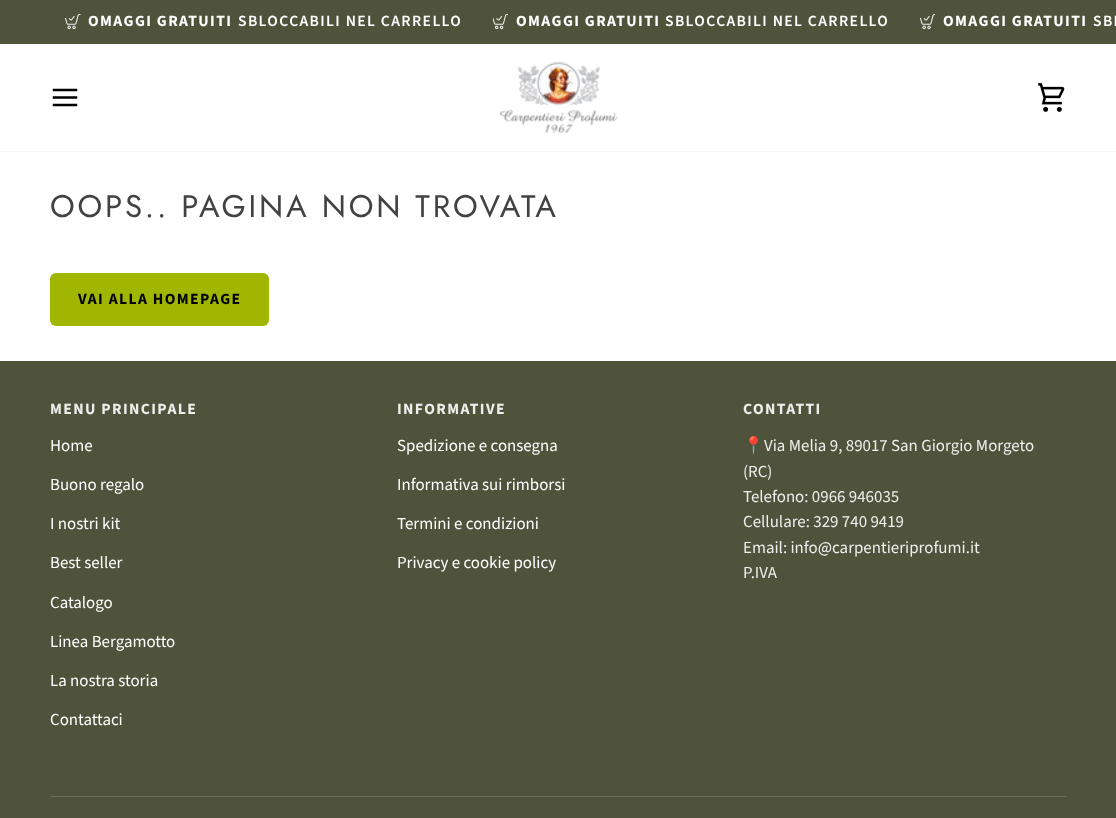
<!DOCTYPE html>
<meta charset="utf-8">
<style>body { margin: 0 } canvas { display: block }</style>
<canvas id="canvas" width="1116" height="818"></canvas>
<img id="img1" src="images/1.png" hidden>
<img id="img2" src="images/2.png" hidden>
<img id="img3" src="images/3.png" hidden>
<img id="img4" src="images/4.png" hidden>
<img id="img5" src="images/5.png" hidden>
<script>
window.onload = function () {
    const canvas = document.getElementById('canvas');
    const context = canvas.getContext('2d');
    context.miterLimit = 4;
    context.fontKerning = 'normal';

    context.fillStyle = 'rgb(255, 255, 255)';
    context.fillRect(0, 0, 1116, 818);
    context.fillStyle = 'rgb(80, 83, 60)';
    context.fillRect(0, 0, 1116, 44);
    context.drawImage(document.getElementById('img1'), 65, 14, 16, 16);
    context.drawImage(document.getElementById('img2'), 493, 14, 15, 16);
    context.drawImage(document.getElementById('img3'), 920, 14, 15, 16);
    context.fillStyle = 'rgb(247, 245, 244)';
    context.fillRect(0, 151, 1116, 1);
    context.beginPath();
    context.moveTo(76, 90);
    context.lineTo(54, 90);
    context.moveTo(76, 97.5);
    context.lineTo(54, 97.5);
    context.moveTo(76, 105);
    context.lineTo(54, 105);
    context.strokeStyle = 'rgb(0, 0, 0)';
    context.lineWidth = 2.5;
    context.lineCap = 'square';
    context.stroke();
    context.drawImage(document.getElementById('img4'), 499, 61, 119, 73);
    context.drawImage(document.getElementById('img5'), 1038, 83, 27, 29);
    context.fillStyle = 'rgb(160, 182, 0)';
    context.beginPath();
    context.roundRect(50, 273, 219, 53, 6);
    context.fill();
    context.fillStyle = 'rgb(80, 83, 60)';
    context.fillRect(0, 361, 1116, 457);
    context.fillStyle = 'rgb(106, 109, 89)';
    context.fillRect(50, 796, 1016, 1);
    context.letterSpacing = '1.4px';
    context.font = 'bold 15.6px Source Sans Pro';
    context.fillStyle = 'rgb(255, 255, 255)';
    context.fillText('OMAGGI GRATUITI', 88, 26);
    context.font = '600 15.6px Source Sans Pro';
    context.fillText('SBLOCCABILI NEL CARRELLO', 238, 26);
    context.font = 'bold 15.6px Source Sans Pro';
    context.fillText('OMAGGI GRATUITI', 516, 26);
    context.font = '600 15.6px Source Sans Pro';
    context.fillText('SBLOCCABILI NEL CARRELLO', 665, 26);
    context.font = 'bold 15.6px Source Sans Pro';
    context.fillText('OMAGGI GRATUITI', 943, 26);
    context.font = '600 15.6px Source Sans Pro';
    context.fillText('SBL', 1093, 26);
    context.letterSpacing = '2.8px';
    context.font = '31.25px Jost';
    context.fillStyle = 'rgb(66, 66, 66)';
    context.fillText('OOPS.. PAGINA NON TROVATA', 50, 217);
    context.letterSpacing = '1.4px';
    context.font = 'bold 15.6px Source Sans Pro';
    context.fillStyle = 'rgb(0, 0, 0)';
    context.fillText('VAI ALLA HOMEPAGE', 78, 304);
    context.fillStyle = 'rgb(238, 238, 236)';
    context.fillText('MENU PRINCIPALE', 50, 414);
    context.letterSpacing = '0px';
    context.font = '16.9px Source Sans Pro';
    context.fillStyle = 'rgb(255, 255, 255)';
    context.fillText('Home', 50, 451);
    context.fillText('Buono regalo', 50, 490);
    context.fillText('I nostri kit', 50, 529);
    context.fillText('Best seller', 50, 568);
    context.fillText('Catalogo', 50, 608);
    context.fillText('Linea Bergamotto', 50, 647);
    context.fillText('La nostra storia', 50, 686);
    context.fillText('Contattaci', 50, 725);
    context.letterSpacing = '1.4px';
    context.font = 'bold 15.6px Source Sans Pro';
    context.fillStyle = 'rgb(238, 238, 236)';
    context.fillText('INFORMATIVE', 397, 414);
    context.letterSpacing = '0px';
    context.font = '16.9px Source Sans Pro';
    context.fillStyle = 'rgb(255, 255, 255)';
    context.fillText('Spedizione e consegna', 397, 451);
    context.fillText('Informativa sui rimborsi', 397, 490);
    context.fillText('Termini e condizioni', 397, 529);
    context.fillText('Privacy e cookie policy', 397, 568);
    context.letterSpacing = '1.4px';
    context.font = 'bold 15.6px Source Sans Pro';
    context.fillStyle = 'rgb(238, 238, 236)';
    context.fillText('CONTATTI', 743, 414);
    context.letterSpacing = '0px';
    context.font = '16.9px Noto Color Emoji';
    context.fillText('📍', 743, 451);
    context.font = '16.9px Source Sans Pro';
    context.fillText('Via Melia 9, 89017 San Giorgio Morgeto', 764, 451);
    context.fillText('(RC)', 743, 477);
    context.fillText('Telefono: 0966 946035', 743, 502);
    context.fillText('Cellulare: 329 740 9419', 743, 527);
    context.fillText('Email: info@carpentieriprofumi.it', 743, 553);
    context.fillText('P.IVA', 743, 578);
};
</script>
